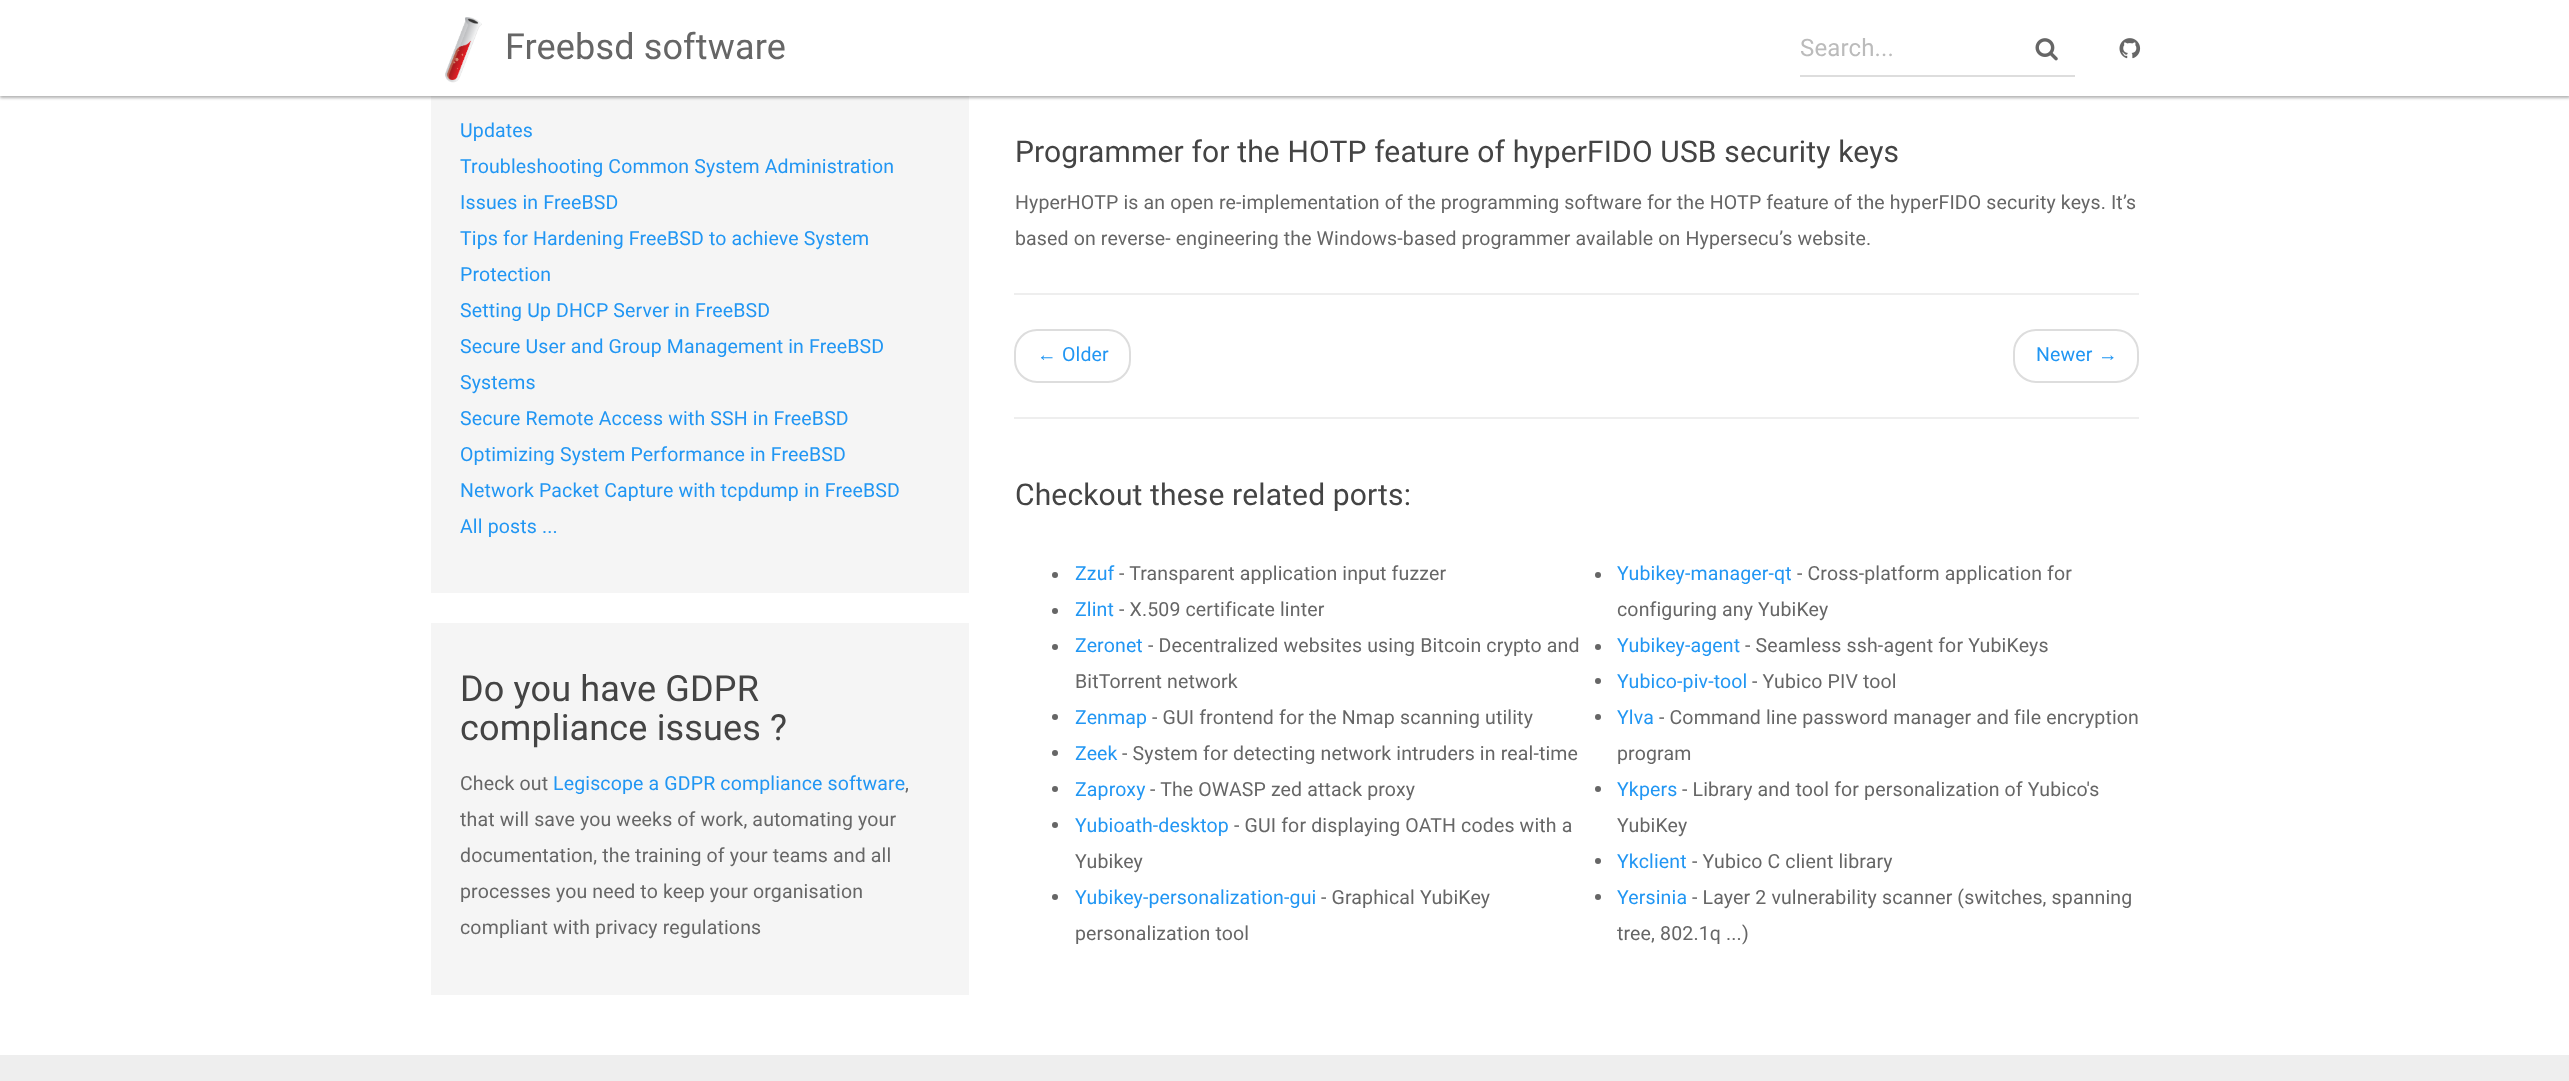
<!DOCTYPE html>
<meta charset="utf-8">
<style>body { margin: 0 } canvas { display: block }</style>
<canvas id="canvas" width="2569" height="1081"></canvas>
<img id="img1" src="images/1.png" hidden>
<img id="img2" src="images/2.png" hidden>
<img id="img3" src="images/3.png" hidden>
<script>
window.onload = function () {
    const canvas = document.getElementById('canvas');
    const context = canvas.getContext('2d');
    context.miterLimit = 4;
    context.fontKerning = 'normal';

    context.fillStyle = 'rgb(255, 255, 255)';
    context.fillRect(0, 0, 2569, 1081);
    context.fillStyle = 'rgb(245, 245, 245)';
    context.fillRect(431, 96, 538, 497);
    context.fillStyle = 'rgba(0, 0, 0, 0.3)';
    context.filter = 'blur(1.5px)';
    context.beginPath();
    context.rect(0, 2, 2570, 96);
    context.fill();
    context.filter = 'none';
    context.fillStyle = 'rgb(255, 255, 255)';
    context.fillRect(0, 0, 2569, 96);
    context.drawImage(document.getElementById('img1'), 445, 17, 37, 66);
    context.fillStyle = 'rgb(221, 221, 221)';
    context.fillRect(1800, 75, 275, 2);
    context.drawImage(document.getElementById('img2'), 2035, 38, 23, 23);
    context.drawImage(document.getElementById('img3'), 2119, 38, 22, 21);
    context.fillStyle = 'rgb(245, 245, 245)';
    context.fillRect(431, 623, 538, 372);
    context.fillStyle = 'rgb(238, 238, 238)';
    context.fillRect(1014, 293, 1125, 2);
    context.beginPath();
    context.roundRect(1015, 330, 115, 52, 22);
    context.strokeStyle = 'rgb(221, 221, 221)';
    context.lineWidth = 2;
    context.stroke();
    context.beginPath();
    context.roundRect(2014, 330, 124, 52, 22);
    context.stroke();
    context.fillRect(1014, 417, 1125, 2);
    context.fillStyle = 'rgb(102, 102, 102)';
    context.beginPath();
    context.arc(1055, 575, 3, 0, 2 * Math.PI);
    context.fill();
    context.beginPath();
    context.arc(1598, 575, 3, 0, 2 * Math.PI);
    context.fill();
    context.beginPath();
    context.arc(1055, 611, 3, 0, 2 * Math.PI);
    context.fill();
    context.beginPath();
    context.arc(1055, 647, 3, 0, 2 * Math.PI);
    context.fill();
    context.beginPath();
    context.arc(1598, 647, 3, 0, 2 * Math.PI);
    context.fill();
    context.beginPath();
    context.arc(1598, 681, 3, 0, 2 * Math.PI);
    context.fill();
    context.beginPath();
    context.arc(1055, 717, 3, 0, 2 * Math.PI);
    context.fill();
    context.beginPath();
    context.arc(1598, 717, 3, 0, 2 * Math.PI);
    context.fill();
    context.beginPath();
    context.arc(1055, 753, 3, 0, 2 * Math.PI);
    context.fill();
    context.beginPath();
    context.arc(1055, 789, 3, 0, 2 * Math.PI);
    context.fill();
    context.beginPath();
    context.arc(1598, 789, 3, 0, 2 * Math.PI);
    context.fill();
    context.beginPath();
    context.arc(1055, 825, 3, 0, 2 * Math.PI);
    context.fill();
    context.beginPath();
    context.arc(1598, 861, 3, 0, 2 * Math.PI);
    context.fill();
    context.beginPath();
    context.arc(1055, 897, 3, 0, 2 * Math.PI);
    context.fill();
    context.beginPath();
    context.arc(1598, 897, 3, 0, 2 * Math.PI);
    context.fill();
    context.fillStyle = 'rgb(238, 238, 238)';
    context.fillRect(0, 1055, 2569, 26);
    context.letterSpacing = '0.15px';
    context.font = '36px Roboto';
    context.fillStyle = 'rgb(102, 102, 102)';
    context.fillText('Freebsd software', 505, 59);
    context.font = '24px Roboto';
    context.fillStyle = 'rgb(187, 187, 187)';
    context.fillText('Search...', 1800, 56);
    context.font = '19.5px Roboto';
    context.fillStyle = 'rgb(33, 150, 243)';
    context.fillText('Updates', 460, 137);
    context.fillText('Troubleshooting Common System Administration', 460, 173);
    context.fillText('Issues in FreeBSD', 460, 209);
    context.fillText('Tips for Hardening FreeBSD to achieve System', 460, 245);
    context.fillText('Protection', 460, 281);
    context.fillText('Setting Up DHCP Server in FreeBSD', 460, 317);
    context.fillText('Secure User and Group Management in FreeBSD', 460, 353);
    context.fillText('Systems', 460, 389);
    context.fillText('Secure Remote Access with SSH in FreeBSD', 460, 425);
    context.fillText('Optimizing System Performance in FreeBSD', 460, 461);
    context.fillText('Network Packet Capture with tcpdump in FreeBSD', 460, 497);
    context.fillText('All posts ...', 460, 533);
    context.font = '36px Roboto';
    context.fillStyle = 'rgb(68, 68, 68)';
    context.fillText('Do you have GDPR', 460, 701);
    context.fillText('compliance issues ?', 460, 740);
    context.font = '19.5px Roboto';
    context.fillStyle = 'rgb(102, 102, 102)';
    context.fillText('Check out', 460, 790);
    context.fillStyle = 'rgb(33, 150, 243)';
    context.fillText('Legiscope a GDPR compliance software', 553, 790);
    context.fillStyle = 'rgb(102, 102, 102)';
    context.fillText(',', 905, 790);
    context.fillText('that will save you weeks of work, automating your', 460, 826);
    context.fillText('documentation, the training of your teams and all', 460, 862);
    context.fillText('processes you need to keep your organisation', 460, 898);
    context.fillText('compliant with privacy regulations', 460, 934);
    context.font = '30px Roboto';
    context.fillStyle = 'rgb(68, 68, 68)';
    context.fillText('Programmer for the HOTP feature of hyperFIDO USB security keys', 1015, 162);
    context.font = '19.5px Roboto';
    context.fillStyle = 'rgb(102, 102, 102)';
    context.fillText('HyperHOTP is an open re-implementation of the programming software for the HOTP feature of the hyperFIDO security keys. It’s', 1015, 209);
    context.fillText('based on reverse- engineering the Windows-based programmer available on Hypersecu’s website.', 1015, 245);
    context.font = '19.5px Liberation Sans';
    context.fillStyle = 'rgb(33, 150, 243)';
    context.fillText('←', 1037, 361);
    context.font = '19.5px Roboto';
    context.fillText('Older', 1062, 361);
    context.fillText('Newer', 2036, 361);
    context.font = '19.5px Liberation Sans';
    context.fillText('→', 2098, 361);
    context.font = '30px Roboto';
    context.fillStyle = 'rgb(68, 68, 68)';
    context.fillText('Checkout these related ports:', 1015, 505);
    context.font = '19.5px Roboto';
    context.fillStyle = 'rgb(33, 150, 243)';
    context.fillText('Zzuf', 1075, 580);
    context.fillStyle = 'rgb(102, 102, 102)';
    context.fillText('- Transparent application input fuzzer', 1119, 580);
    context.fillStyle = 'rgb(33, 150, 243)';
    context.fillText('Yubikey-manager-qt', 1617, 580);
    context.fillStyle = 'rgb(102, 102, 102)';
    context.fillText('- Cross-platform application for', 1797, 580);
    context.fillText('configuring any YubiKey', 1617, 616);
    context.fillStyle = 'rgb(33, 150, 243)';
    context.fillText('Zlint', 1075, 616);
    context.fillStyle = 'rgb(102, 102, 102)';
    context.fillText('- X.509 certificate linter', 1119, 616);
    context.fillStyle = 'rgb(33, 150, 243)';
    context.fillText('Zeronet', 1075, 652);
    context.fillStyle = 'rgb(102, 102, 102)';
    context.fillText('- Decentralized websites using Bitcoin crypto and', 1148, 652);
    context.fillText('BitTorrent network', 1075, 688);
    context.fillStyle = 'rgb(33, 150, 243)';
    context.fillText('Yubikey-agent', 1617, 652);
    context.fillStyle = 'rgb(102, 102, 102)';
    context.fillText('- Seamless ssh-agent for YubiKeys', 1745, 652);
    context.fillStyle = 'rgb(33, 150, 243)';
    context.fillText('Yubico-piv-tool', 1617, 688);
    context.fillStyle = 'rgb(102, 102, 102)';
    context.fillText('- Yubico PIV tool', 1752, 688);
    context.fillStyle = 'rgb(33, 150, 243)';
    context.fillText('Zenmap', 1075, 724);
    context.fillStyle = 'rgb(102, 102, 102)';
    context.fillText('- GUI frontend for the Nmap scanning utility', 1152, 724);
    context.fillStyle = 'rgb(33, 150, 243)';
    context.fillText('Ylva', 1617, 724);
    context.fillStyle = 'rgb(102, 102, 102)';
    context.fillText('- Command line password manager and file encryption', 1659, 724);
    context.fillText('program', 1617, 760);
    context.fillStyle = 'rgb(33, 150, 243)';
    context.fillText('Zeek', 1075, 760);
    context.fillStyle = 'rgb(102, 102, 102)';
    context.fillText('- System for detecting network intruders in real-time', 1122, 760);
    context.fillStyle = 'rgb(33, 150, 243)';
    context.fillText('Zaproxy', 1075, 796);
    context.fillStyle = 'rgb(102, 102, 102)';
    context.fillText('- The OWASP zed attack proxy', 1150, 796);
    context.fillStyle = 'rgb(33, 150, 243)';
    context.fillText('Ykpers', 1617, 796);
    context.fillStyle = 'rgb(102, 102, 102)';
    context.fillText('- Library and tool for personalization of Yubico\'s', 1682, 796);
    context.fillText('YubiKey', 1617, 832);
    context.fillStyle = 'rgb(33, 150, 243)';
    context.fillText('Yubioath-desktop', 1075, 832);
    context.fillStyle = 'rgb(102, 102, 102)';
    context.fillText('- GUI for displaying OATH codes with a', 1234, 832);
    context.fillText('Yubikey', 1075, 868);
    context.fillStyle = 'rgb(33, 150, 243)';
    context.fillText('Ykclient', 1617, 868);
    context.fillStyle = 'rgb(102, 102, 102)';
    context.fillText('- Yubico C client library', 1692, 868);
    context.fillStyle = 'rgb(33, 150, 243)';
    context.fillText('Yubikey-personalization-gui', 1075, 904);
    context.fillStyle = 'rgb(102, 102, 102)';
    context.fillText('- Graphical YubiKey', 1321, 904);
    context.fillText('personalization tool', 1075, 940);
    context.fillStyle = 'rgb(33, 150, 243)';
    context.fillText('Yersinia', 1617, 904);
    context.fillStyle = 'rgb(102, 102, 102)';
    context.fillText('- Layer 2 vulnerability scanner (switches, spanning', 1692, 904);
    context.fillText('tree, 802.1q ...)', 1617, 940);
};
</script>
